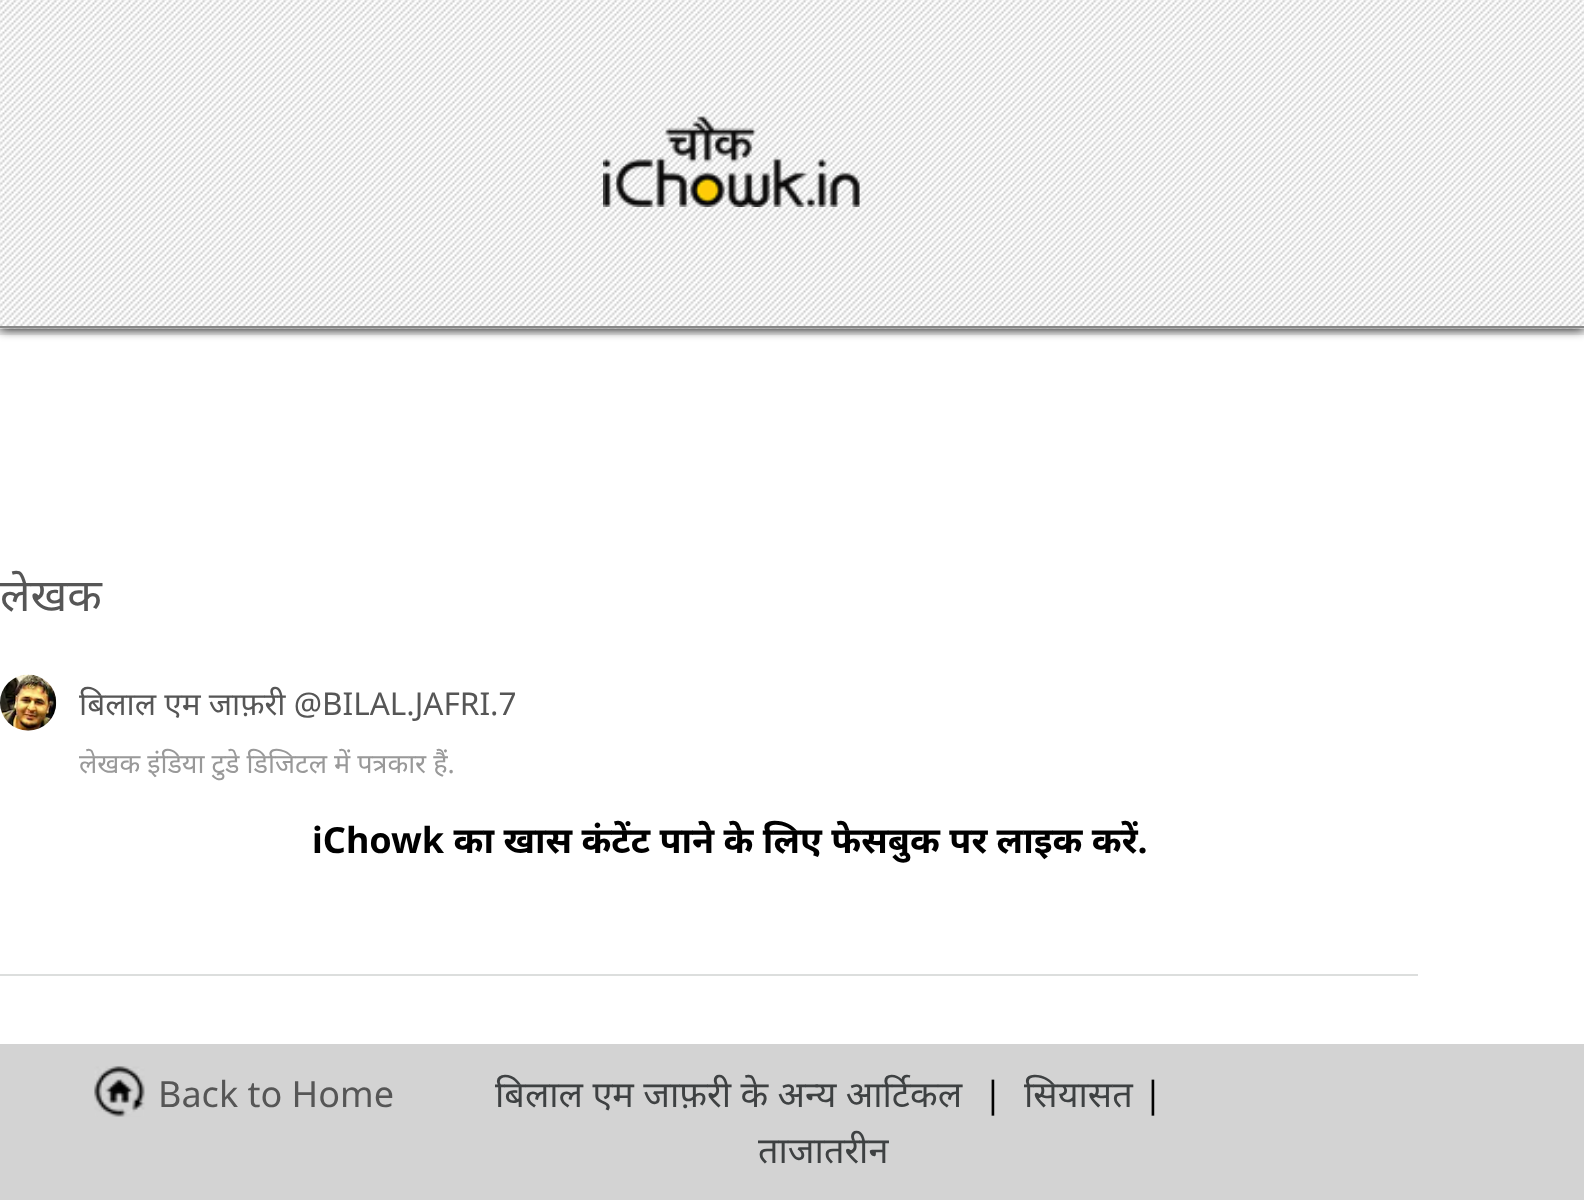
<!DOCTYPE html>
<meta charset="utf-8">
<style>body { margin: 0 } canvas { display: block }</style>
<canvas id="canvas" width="1584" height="1200"></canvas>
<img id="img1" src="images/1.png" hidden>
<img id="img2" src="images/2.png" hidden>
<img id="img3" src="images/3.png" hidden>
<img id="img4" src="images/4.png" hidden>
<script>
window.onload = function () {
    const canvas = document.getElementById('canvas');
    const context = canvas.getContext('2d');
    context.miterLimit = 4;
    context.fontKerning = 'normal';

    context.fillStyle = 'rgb(255, 255, 255)';
    context.fillRect(0, 0, 1584, 1200);
    context.fillStyle = 'rgb(236, 236, 236)';
    context.fillRect(0, 328, 1584, 7);
    context.fillStyle = 'rgb(0, 0, 0)';
    context.filter = 'blur(5.5px)';
    context.beginPath();
    context.rect(0, 0, 1584, 329);
    context.fill();
    context.filter = 'none';
    context.drawImage(document.getElementById('img1'), 0, 0, 1584, 329);
    context.fillStyle = 'rgb(136, 136, 136)';
    context.fillRect(0, 326, 1584, 2);
    context.drawImage(document.getElementById('img2'), 603, 116, 257, 91);
    context.drawImage(document.getElementById('img3'), 0, 674, 57, 57);
    context.fillStyle = 'rgb(220, 222, 221)';
    context.fillRect(0, 974, 1418, 2);
    context.fillStyle = 'rgb(211, 211, 211)';
    context.fillRect(0, 1044, 1584, 156);
    context.drawImage(document.getElementById('img4'), 94, 1066, 51, 51);
    context.font = '45px Noto Sans';
    context.fillStyle = 'rgb(86, 86, 86)';
    context.fillText('लेखक', 0, 611);
    context.font = '31.5px Noto Sans';
    context.fillText('बिलाल एम जाफ़री @BILAL.JAFRI.7', 79, 715);
    context.font = '27px Noto Sans';
    context.fillStyle = 'rgb(153, 153, 153)';
    context.fillText('लेखक इंडिया टुडे डिजिटल में पत्रकार हैं.', 79, 773);
    context.font = 'bold 36px Noto Sans';
    context.fillStyle = 'rgb(0, 0, 0)';
    context.fillText('iChowk का खास कंटेंट पाने के लिए फेसबुक पर लाइक करें.', 312, 853);
    context.font = '36px Noto Sans';
    context.fillStyle = 'rgb(86, 86, 86)';
    context.fillText('Back to Home', 158, 1107);
    context.fillStyle = 'rgb(62, 65, 66)';
    context.fillText('बिलाल एम जाफ़री के अन्य आर्टिकल', 495, 1107);
    context.fillStyle = 'rgb(0, 0, 0)';
    context.fillText('|', 983, 1107);
    context.fillStyle = 'rgb(62, 65, 66)';
    context.fillText('सियासत', 1024, 1107);
    context.fillStyle = 'rgb(0, 0, 0)';
    context.fillText('|', 1143, 1107);
    context.fillStyle = 'rgb(62, 65, 66)';
    context.fillText('ताजातरीन', 758, 1163);
};
</script>
